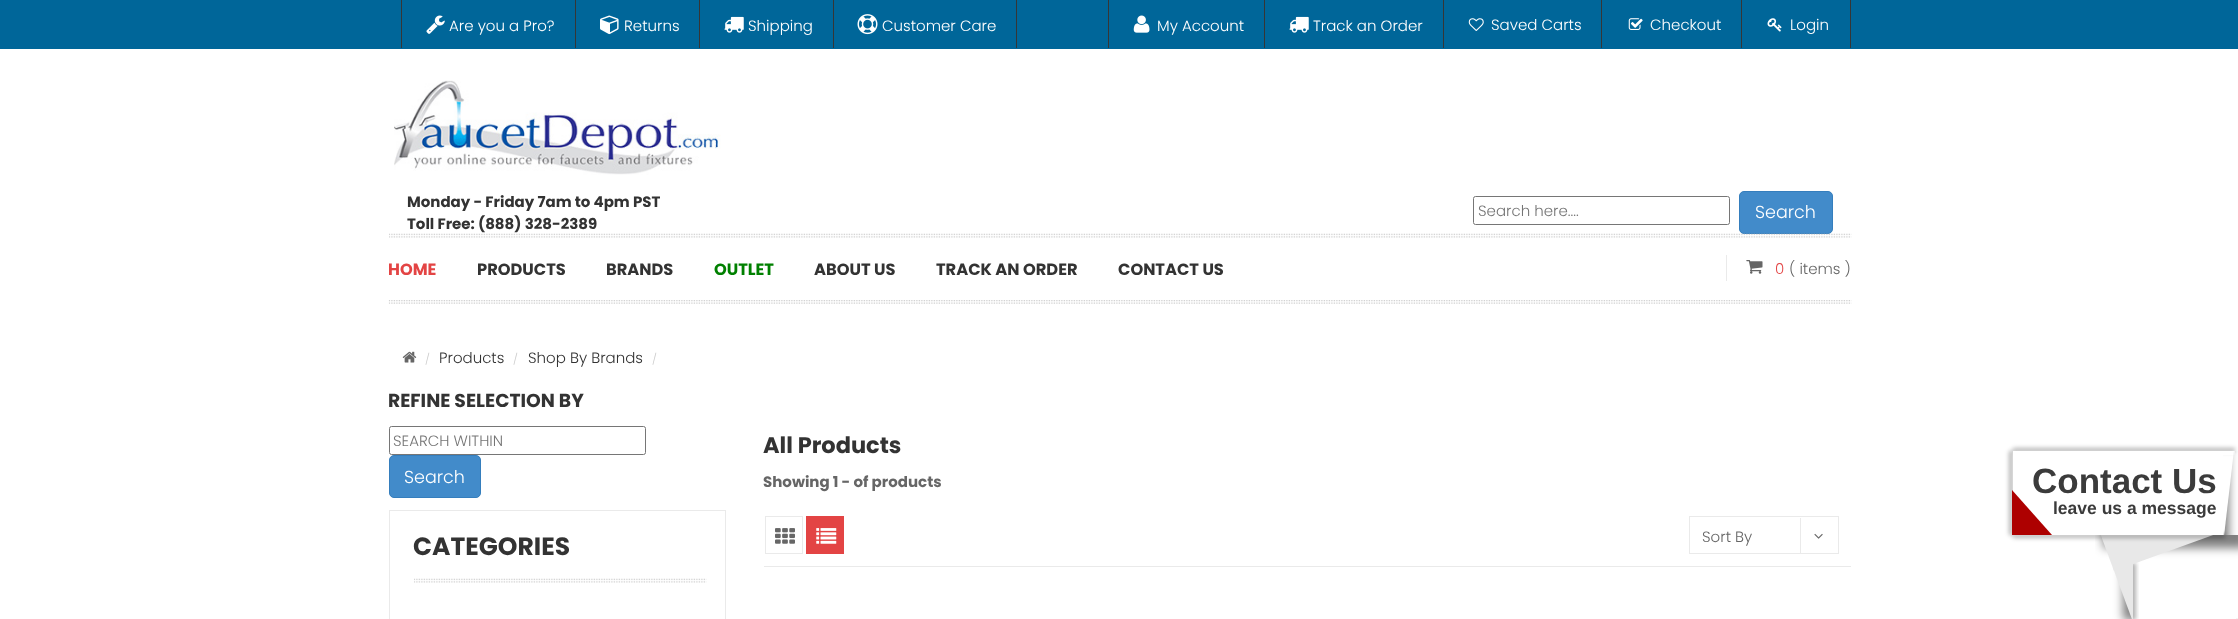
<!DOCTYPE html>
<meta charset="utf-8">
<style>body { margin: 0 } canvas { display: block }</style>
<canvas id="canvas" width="2238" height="619"></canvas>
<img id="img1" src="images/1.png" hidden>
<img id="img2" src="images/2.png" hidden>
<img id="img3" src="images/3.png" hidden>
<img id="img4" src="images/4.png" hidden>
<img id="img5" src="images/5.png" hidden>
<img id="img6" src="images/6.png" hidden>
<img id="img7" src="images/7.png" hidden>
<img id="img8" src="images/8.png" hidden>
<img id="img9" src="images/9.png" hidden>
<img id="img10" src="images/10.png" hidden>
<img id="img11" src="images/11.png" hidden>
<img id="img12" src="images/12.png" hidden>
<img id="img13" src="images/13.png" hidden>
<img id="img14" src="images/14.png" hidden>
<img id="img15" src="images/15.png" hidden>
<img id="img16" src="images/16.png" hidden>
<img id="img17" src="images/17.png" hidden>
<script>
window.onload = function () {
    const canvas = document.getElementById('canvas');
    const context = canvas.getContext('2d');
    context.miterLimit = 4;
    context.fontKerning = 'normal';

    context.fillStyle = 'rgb(255, 255, 255)';
    context.fillRect(0, 0, 2238, 619);
    context.fillStyle = 'rgb(0, 102, 153)';
    context.fillRect(0, 0, 2238, 49);
    context.fillStyle = 'rgb(54, 54, 54)';
    context.fillRect(401, 0, 1, 48);
    context.drawImage(document.getElementById('img1'), 426, 15, 19, 19);
    context.fillRect(575, 0, 1, 48);
    context.drawImage(document.getElementById('img2'), 600, 15, 19, 20);
    context.fillRect(699, 0, 1, 48);
    context.drawImage(document.getElementById('img3'), 724, 16, 20, 17);
    context.fillRect(1016, 0, 1, 48);
    context.fillRect(833, 0, 1, 48);
    context.drawImage(document.getElementById('img4'), 857, 14, 21, 21);
    context.fillRect(1108, 0, 1, 48);
    context.drawImage(document.getElementById('img5'), 1133, 15, 17, 18);
    context.fillRect(1264, 0, 1, 48);
    context.drawImage(document.getElementById('img3'), 1289, 16, 20, 17);
    context.fillRect(1443, 0, 1, 48);
    context.drawImage(document.getElementById('img6'), 1468, 18, 16, 13);
    context.fillRect(1601, 0, 1, 48);
    context.drawImage(document.getElementById('img7'), 1628, 18, 15, 12);
    context.fillRect(1850, 0, 1, 48);
    context.fillRect(1741, 0, 1, 48);
    context.drawImage(document.getElementById('img8'), 1767, 18, 15, 14);
    context.drawImage(document.getElementById('img9'), 394, 80, 327, 95);
    context.beginPath();
    context.roundRect(1473.5, 196.5, 256, 28, 2);
    context.strokeStyle = 'rgb(118, 118, 118)';
    context.stroke();
    context.fillStyle = 'rgb(66, 139, 202)';
    context.beginPath();
    context.roundRect(1739.5, 191.5, 93, 42, 4.5);
    context.fill();
    context.strokeStyle = 'rgb(53, 126, 189)';
    context.stroke();
    context.drawImage(document.getElementById('img10'), 389, 233, 1463, 5);
    context.fillStyle = 'rgb(234, 234, 234)';
    context.fillRect(1726, 255, 1, 26);
    context.drawImage(document.getElementById('img11'), 1746, 260, 17, 14);
    context.drawImage(document.getElementById('img12'), 388, 300, 1464, 4);
    context.drawImage(document.getElementById('img13'), 402, 351, 15, 12);
    context.beginPath();
    context.roundRect(389.5, 426.5, 256, 28, 2);
    context.strokeStyle = 'rgb(118, 118, 118)';
    context.stroke();
    context.fillStyle = 'rgb(66, 139, 202)';
    context.beginPath();
    context.roundRect(389.5, 455.5, 91, 42, 4.5);
    context.fill();
    context.strokeStyle = 'rgb(53, 126, 189)';
    context.stroke();
    context.strokeStyle = 'rgb(234, 234, 234)';
    context.strokeRect(389.5, 510.5, 336, 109);
    context.drawImage(document.getElementById('img14'), 414, 578, 293, 5);
    context.strokeRect(765.5, 516.5, 37, 37);
    context.drawImage(document.getElementById('img15'), 775, 528, 20, 16);
    context.fillStyle = 'rgb(227, 68, 68)';
    context.fillRect(806, 516, 38, 38);
    context.drawImage(document.getElementById('img16'), 816, 528, 21, 16);
    context.strokeRect(1689.5, 516.5, 149, 37);
    context.fillStyle = 'rgb(234, 234, 234)';
    context.fillRect(1800, 518, 1, 35);
    context.drawImage(document.getElementById('img17'), 1814, 533, 9, 6);
    context.fillRect(764, 566, 1087, 1);
    context.save();
    context.beginPath();
    context.rect(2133, 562, 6, 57);
    context.clip();
    context.fillStyle = 'rgba(0, 0, 0, 0.3)';
    context.filter = 'blur(2px)';
    context.beginPath();
    context.rect(2113, 563, 23, 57);
    context.fill();
    context.filter = 'none';
    context.restore();
    context.save();
    context.beginPath();
    context.rect(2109, 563, 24, 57);
    context.clip();
    context.fillStyle = 'rgba(0, 0, 0, 0.5)';
    context.filter = 'blur(5px)';
    context.beginPath();
    context.rect(2123, 563, 21, 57);
    context.fill();
    context.filter = 'none';
    context.restore();
    context.save();
    context.beginPath();
    context.rect(2109, 563, 24, 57);
    context.clip();
    context.fillStyle = 'rgb(232, 232, 232)';
    context.beginPath();
    context.moveTo(2113, 568);
    context.lineTo(2133, 561);
    context.lineTo(2153, 615);
    context.lineTo(2133, 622);
    context.closePath();
    context.fill();
    context.restore();
    context.save();
    context.beginPath();
    context.rect(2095, 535, 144, 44);
    context.clip();
    context.fillStyle = 'rgba(0, 0, 0, 0.5)';
    context.filter = 'blur(5px)';
    context.beginPath();
    context.rect(2103, 508, 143, 40);
    context.fill();
    context.filter = 'none';
    context.restore();
    context.save();
    context.beginPath();
    context.rect(2095, 535, 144, 44);
    context.clip();
    context.fillStyle = 'rgb(232, 232, 232)';
    context.beginPath();
    context.moveTo(2100, 533);
    context.lineTo(2235, 484);
    context.lineTo(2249, 522);
    context.lineTo(2114, 571);
    context.closePath();
    context.fill();
    context.restore();
    context.save();
    context.beginPath();
    context.rect(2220, 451, 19, 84);
    context.clip();
    context.fillStyle = 'rgba(0, 0, 0, 0.5)';
    context.filter = 'blur(5px)';
    context.beginPath();
    context.rect(2210, 449, 19, 95);
    context.fill();
    context.filter = 'none';
    context.restore();
    context.save();
    context.beginPath();
    context.rect(2220, 451, 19, 84);
    context.clip();
    context.fillStyle = 'rgb(255, 255, 255)';
    context.beginPath();
    context.moveTo(2216, 448);
    context.lineTo(2234, 450);
    context.lineTo(2223, 545);
    context.lineTo(2204, 542);
    context.closePath();
    context.fill();
    context.restore();
    context.save();
    context.beginPath();
    context.moveTo(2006, 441);
    context.lineTo(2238, 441);
    context.lineTo(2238, 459);
    context.lineTo(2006, 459);
    context.closePath();
    context.moveTo(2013, 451);
    context.lineTo(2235, 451);
    context.lineTo(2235, 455);
    context.lineTo(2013, 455);
    context.closePath();
    context.clip('evenodd');
    context.fillStyle = 'rgba(0, 0, 0, 0.3)';
    context.filter = 'blur(2px)';
    context.beginPath();
    context.rect(2013, 448, 222, 4);
    context.fill();
    context.filter = 'none';
    context.restore();
    context.fillStyle = 'rgba(0, 0, 0, 0.3)';
    context.filter = 'blur(2px)';
    context.beginPath();
    context.rect(2009, 451, 4, 84);
    context.fill();
    context.filter = 'none';
    context.filter = 'blur(2px)';
    context.beginPath();
    context.rect(2013, 534, 212, 4);
    context.fill();
    context.filter = 'none';
    context.fillStyle = 'rgb(255, 255, 255)';
    context.fillRect(2013, 451, 210, 84);
    context.fillStyle = 'rgb(245, 245, 245)';
    context.fillRect(2236, 618, 2, 1);
    context.font = '300 15px Poppins';
    context.fillStyle = 'rgb(255, 255, 255)';
    context.fillText('Are you a Pro?', 449, 31);
    context.fillText('Returns', 624, 31);
    context.fillText('Shipping', 748, 31);
    context.fillText('Customer Care', 882, 31);
    context.fillText('My Account', 1157, 31);
    context.fillText('Track an Order', 1313, 31);
    context.fillText('Saved Carts', 1491, 30);
    context.fillText('Checkout', 1650, 30);
    context.fillText('Login', 1790, 30);
    context.font = 'bold 15px Poppins';
    context.fillStyle = 'rgb(51, 51, 51)';
    context.fillText('Monday - Friday 7am to 4pm PST', 407, 207);
    context.fillText('Toll Free: (888) 328-2389', 407, 229);
    context.font = '300 15px Poppins';
    context.fillStyle = 'rgb(117, 117, 117)';
    context.fillText('Search here....', 1478, 216);
    context.font = '300 17.5px Poppins';
    context.fillStyle = 'rgb(255, 255, 255)';
    context.fillText('Search', 1755, 218);
    context.font = 'bold 16.25px Poppins';
    context.fillStyle = 'rgb(227, 68, 68)';
    context.fillText('HOME', 388, 275);
    context.fillStyle = 'rgb(51, 51, 51)';
    context.fillText('PRODUCTS', 477, 275);
    context.fillText('BRANDS', 606, 275);
    context.fillStyle = 'rgb(0, 128, 0)';
    context.fillText('OUTLET', 714, 275);
    context.fillStyle = 'rgb(51, 51, 51)';
    context.fillText('ABOUT US', 814, 275);
    context.fillText('TRACK AN ORDER', 936, 275);
    context.fillText('CONTACT US', 1118, 275);
    context.font = '300 15px Poppins';
    context.fillStyle = 'rgb(227, 68, 68)';
    context.fillText('0', 1775, 274);
    context.fillStyle = 'rgb(102, 102, 102)';
    context.fillText('( items )', 1789, 274);
    context.font = '300 11px Poppins';
    context.fillStyle = 'rgb(204, 204, 204)';
    context.fillText('/', 425, 363);
    context.font = '300 15px Poppins';
    context.fillStyle = 'rgb(51, 51, 51)';
    context.fillText('Products', 439, 363);
    context.font = '300 11px Poppins';
    context.fillStyle = 'rgb(204, 204, 204)';
    context.fillText('/', 513, 363);
    context.font = '300 15px Poppins';
    context.fillStyle = 'rgb(51, 51, 51)';
    context.fillText('Shop By Brands', 528, 363);
    context.font = '300 11px Poppins';
    context.fillStyle = 'rgb(204, 204, 204)';
    context.fillText('/', 652, 363);
    context.font = 'bold 18.75px Poppins';
    context.fillStyle = 'rgb(51, 51, 51)';
    context.fillText('REFINE SELECTION BY', 388, 407);
    context.font = '300 15px Poppins';
    context.fillStyle = 'rgb(117, 117, 117)';
    context.fillText('SEARCH WITHIN', 393, 446);
    context.font = '300 17.5px Poppins';
    context.fillStyle = 'rgb(255, 255, 255)';
    context.fillText('Search', 404, 483);
    context.font = 'bold 25px Poppins';
    context.fillStyle = 'rgb(51, 51, 51)';
    context.fillText('CATEGORIES', 413, 555);
    context.font = 'bold 22.5px Poppins';
    context.fillText('All Products', 763, 453);
    context.font = 'bold 15px Poppins';
    context.fillStyle = 'rgb(102, 102, 102)';
    context.fillText('Showing 1 - of products', 763, 487);
    context.font = '300 15px Poppins';
    context.fillText('Sort By', 1702, 542);
    context.font = 'bold 35px Liberation Sans';
    context.fillStyle = 'rgb(59, 59, 59)';
    context.fillText('Contact Us', 2032, 493);
    context.fillStyle = 'rgb(173, 0, 0)';
    context.beginPath();
    context.moveTo(2012, 535);
    context.lineTo(2012, 490);
    context.lineTo(2052, 535);
    context.closePath();
    context.fill();
    context.font = 'bold 17.5px Liberation Sans';
    context.fillStyle = 'rgb(59, 59, 59)';
    context.fillText('leave us a message', 2053, 514);
};
</script>
